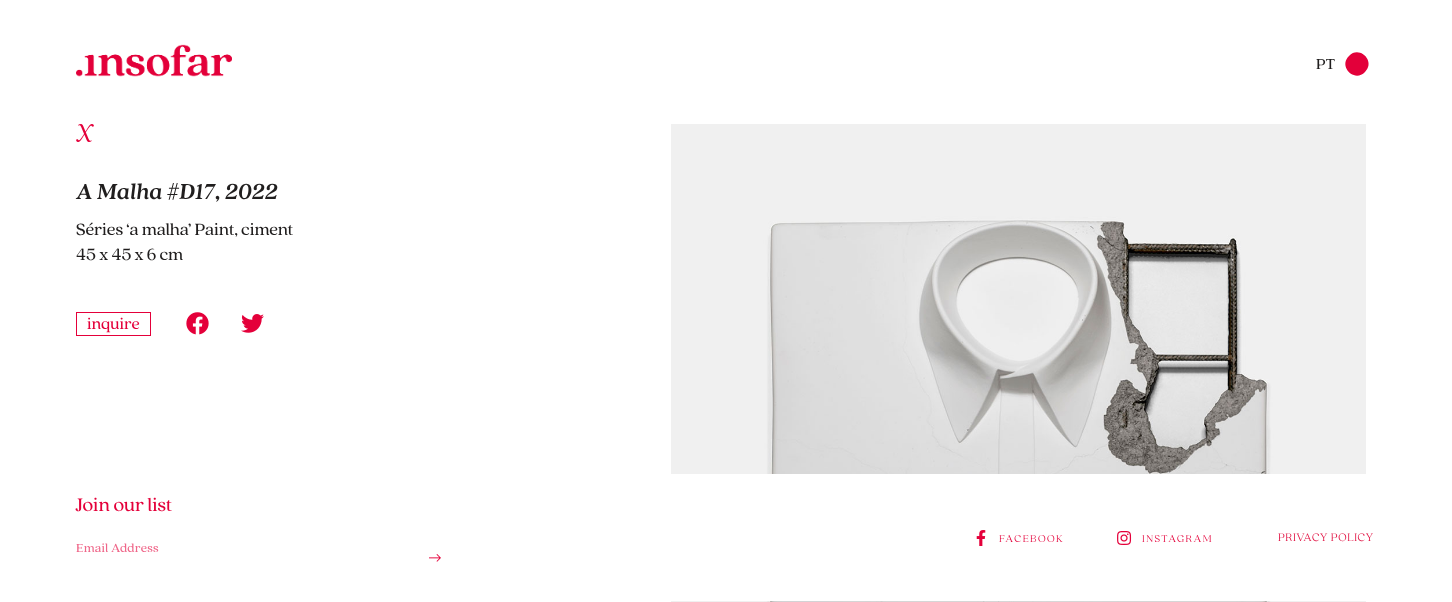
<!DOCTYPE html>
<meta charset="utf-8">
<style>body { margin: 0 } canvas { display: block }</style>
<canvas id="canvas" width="1452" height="602"></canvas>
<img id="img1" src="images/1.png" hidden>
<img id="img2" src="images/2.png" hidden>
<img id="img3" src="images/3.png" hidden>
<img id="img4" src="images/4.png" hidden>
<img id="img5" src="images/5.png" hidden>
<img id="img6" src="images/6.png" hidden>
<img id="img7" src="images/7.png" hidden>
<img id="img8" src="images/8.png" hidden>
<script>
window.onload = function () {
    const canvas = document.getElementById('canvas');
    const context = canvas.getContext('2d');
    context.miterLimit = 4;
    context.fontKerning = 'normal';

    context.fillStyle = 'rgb(255, 255, 255)';
    context.fillRect(0, 0, 1452, 602);
    context.drawImage(document.getElementById('img1'), 76, 44, 156, 33);
    context.fillStyle = 'rgb(227, 0, 58)';
    context.beginPath();
    context.moveTo(1349, 56);
    context.bezierCurveTo(1359.5, 45, 1376, 61.5, 1365, 72);
    context.bezierCurveTo(1354.5, 83, 1338, 66.5, 1349, 56);
    context.closePath();
    context.fill();
    context.drawImage(document.getElementById('img2'), 76, 124, 18, 18);
    context.strokeStyle = 'rgb(228, 0, 58)';
    context.strokeRect(76.5, 312.5, 74, 23);
    context.drawImage(document.getElementById('img3'), 186, 312, 23, 23);
    context.drawImage(document.getElementById('img4'), 241, 314, 23, 19);
    context.drawImage(document.getElementById('img5'), 671, 124, 695, 478);
    context.fillStyle = 'rgb(255, 255, 255)';
    context.fillRect(671, 474, 695, 127);
    context.drawImage(document.getElementById('img6'), 429, 554, 12, 8);
    context.drawImage(document.getElementById('img7'), 976, 530, 10, 16);
    context.drawImage(document.getElementById('img8'), 1117, 531, 15, 14);
    context.font = '16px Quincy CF';
    context.fillStyle = 'rgb(32, 30, 30)';
    context.fillText('PT', 1316, 69);
    context.font = 'italic bold 24px Quincy CF';
    context.fillText('A Malha #D17, 2022', 76, 199);
    context.font = '18px Quincy CF';
    context.fillText('Séries ‘a malha’ Paint, ciment', 76, 235);
    context.fillText('45 x 45 x 6 cm', 76, 260);
    context.font = '17px Quincy CF';
    context.fillStyle = 'rgb(228, 0, 58)';
    context.fillText('inquire', 87, 329);
    context.font = '20px Quincy CF';
    context.fillText('Join our list', 76, 511);
    context.letterSpacing = '0.25px';
    context.font = '13px Quincy CF';
    context.fillStyle = 'rgb(239, 102, 137)';
    context.fillText('Email Address', 76, 552);
    context.letterSpacing = '1.5px';
    context.font = '100 11px Quincy CF';
    context.fillStyle = 'rgb(228, 0, 58)';
    context.fillText('FACEBOOK', 999, 542);
    context.fillText('INSTAGRAM', 1142, 542);
    context.letterSpacing = '0.6px';
    context.font = '100 12px Quincy CF';
    context.fillStyle = 'rgb(225, 16, 65)';
    context.fillText('PRIVACY POLICY', 1278, 541);
};
</script>
